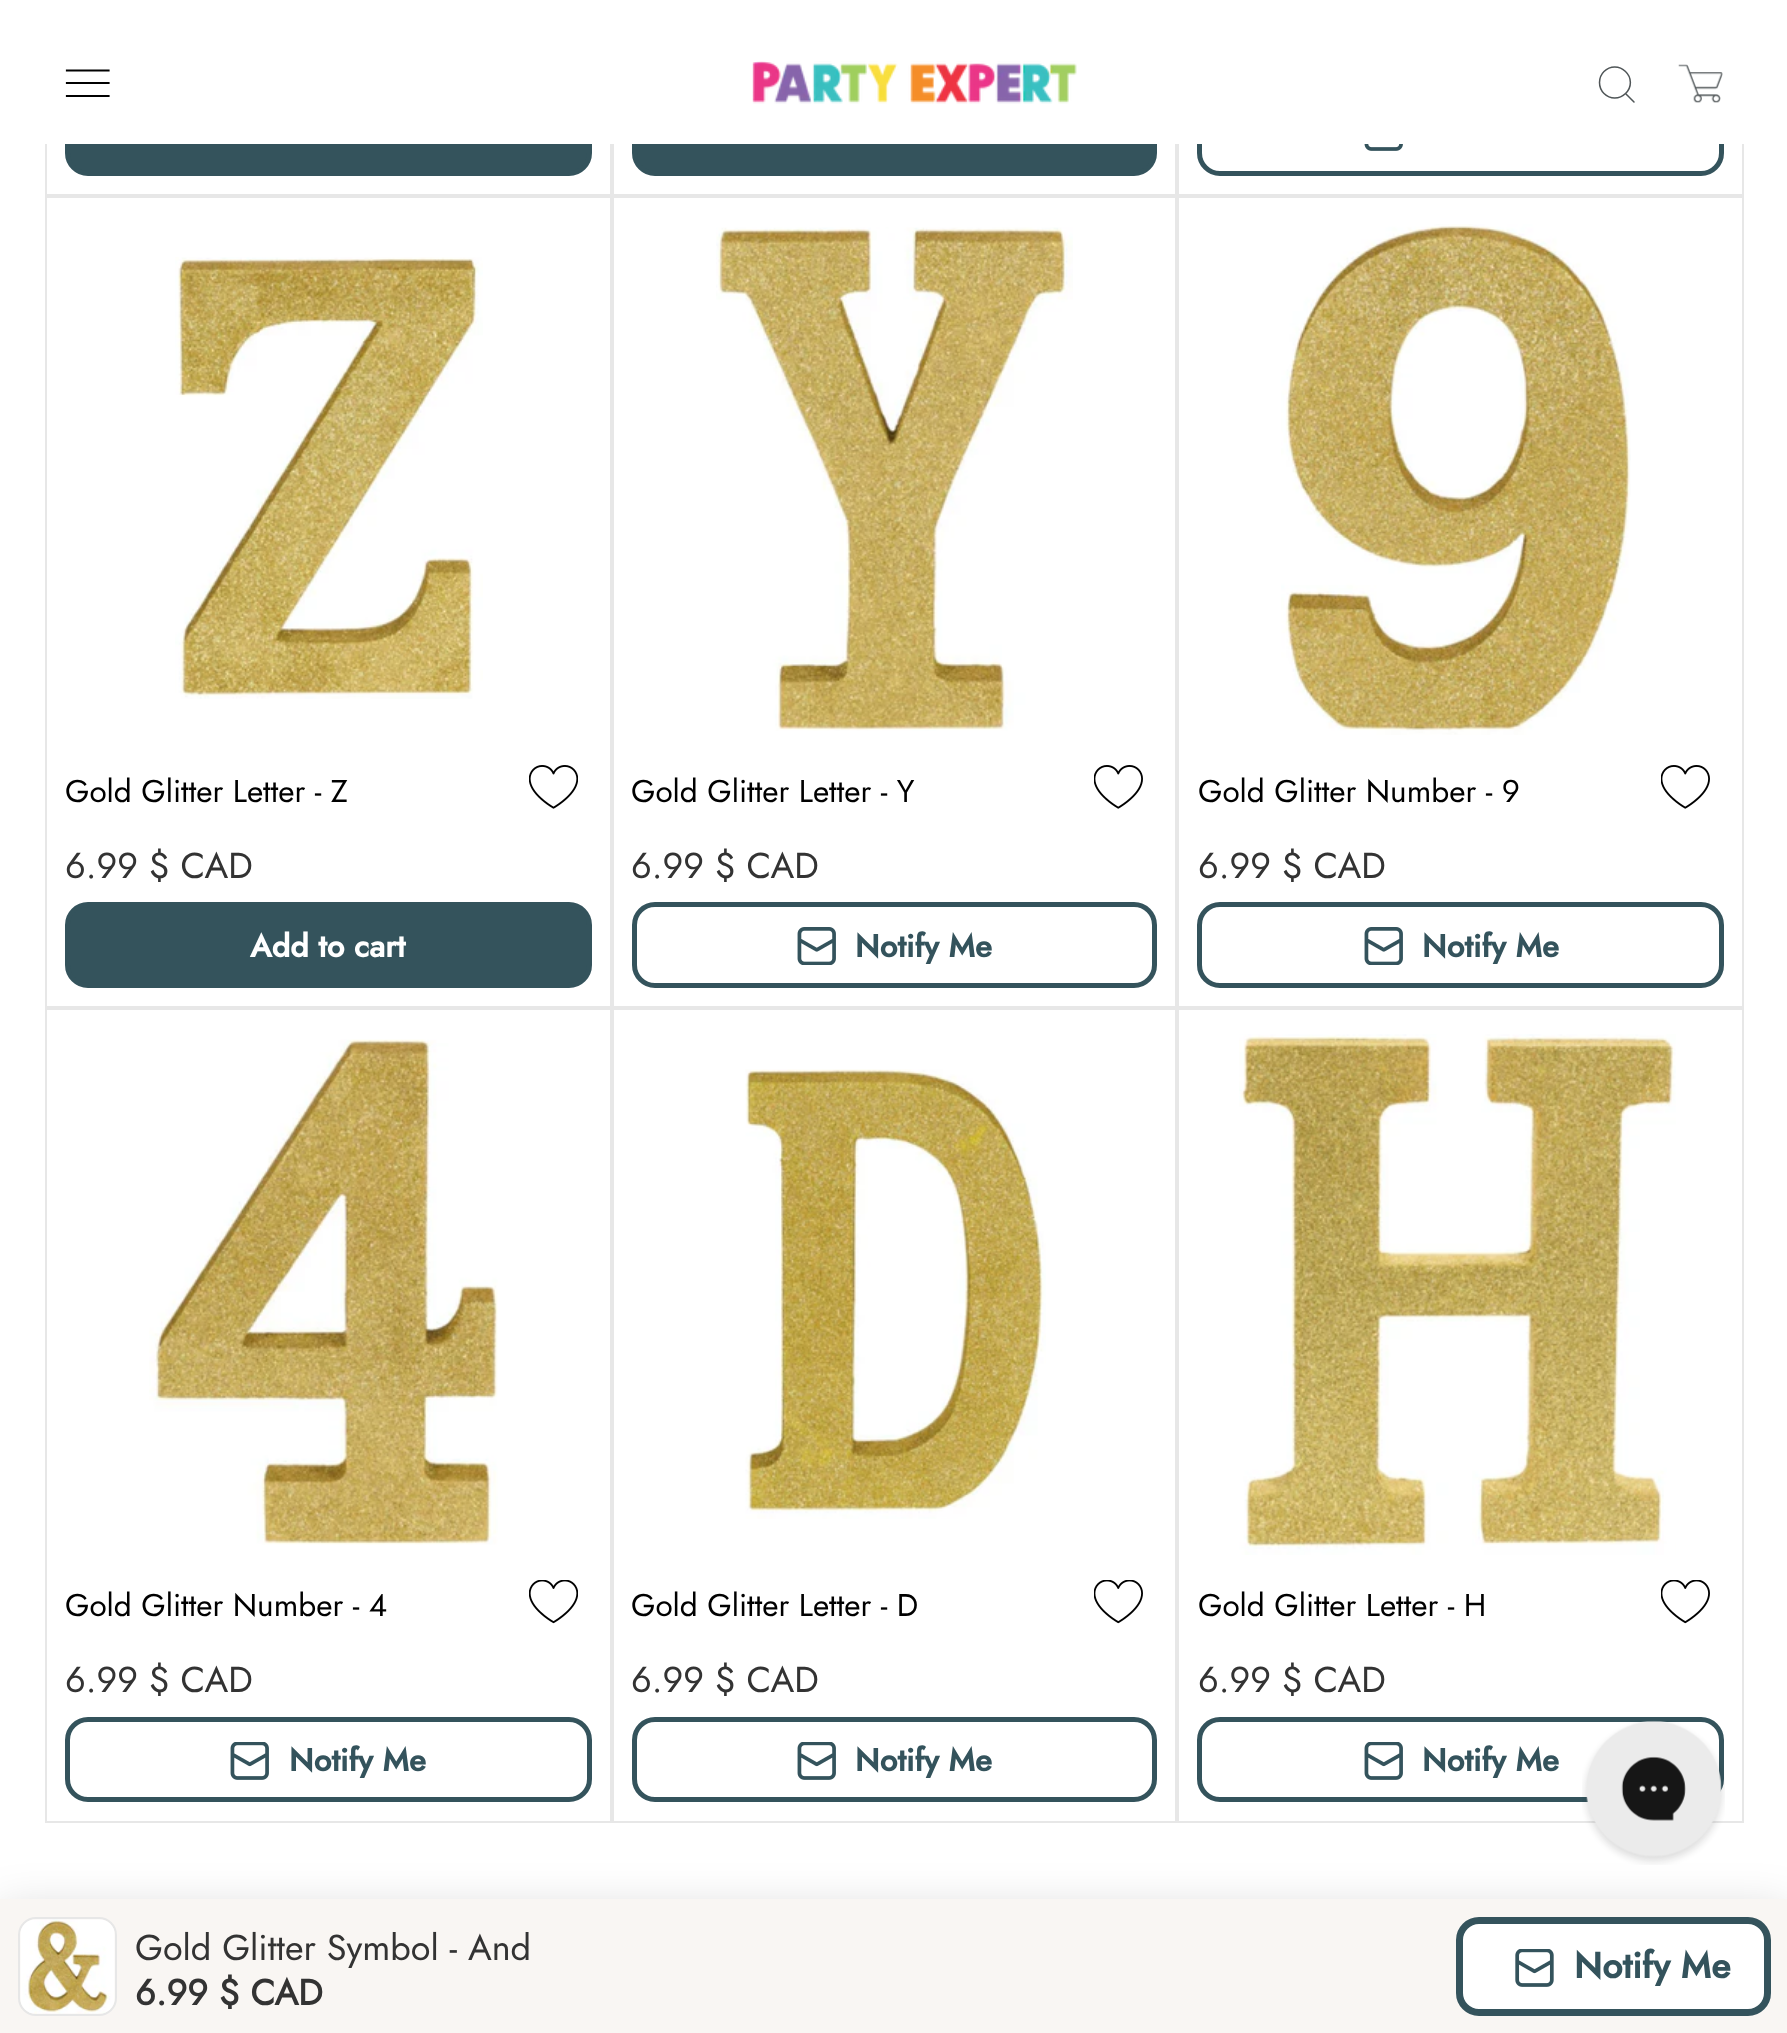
<!DOCTYPE html>
<meta charset="utf-8">
<style>body { margin: 0 } canvas { display: block }</style>
<canvas id="canvas" width="1787" height="2033"></canvas>
<img id="img1" src="images/1.png" hidden>
<img id="img2" src="images/2.png" hidden>
<img id="img3" src="images/3.png" hidden>
<img id="img4" src="images/4.png" hidden>
<img id="img5" src="images/5.png" hidden>
<img id="img6" src="images/6.png" hidden>
<img id="img7" src="images/7.png" hidden>
<img id="img8" src="images/8.png" hidden>
<img id="img9" src="images/9.png" hidden>
<img id="img10" src="images/10.png" hidden>
<img id="img11" src="images/11.png" hidden>
<img id="img12" src="images/12.png" hidden>
<img id="img13" src="images/13.png" hidden>
<img id="img14" src="images/14.png" hidden>
<img id="img15" src="images/15.png" hidden>
<img id="img16" src="images/16.png" hidden>
<img id="img17" src="images/17.png" hidden>
<img id="img18" src="images/18.png" hidden>
<script>
window.onload = function () {
    const canvas = document.getElementById('canvas');
    const context = canvas.getContext('2d');
    context.miterLimit = 4;
    context.fontKerning = 'normal';

    context.fillStyle = 'rgb(255, 255, 255)';
    context.fillRect(0, 0, 1787, 2033);
    context.strokeStyle = 'rgb(231, 231, 231)';
    context.lineWidth = 2;
    context.strokeRect(46, -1, 565, 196);
    context.fillStyle = 'rgb(52, 83, 92)';
    context.beginPath();
    context.roundRect(67.5, 92.5, 522, 81, 20.5);
    context.fill();
    context.strokeStyle = 'rgb(52, 83, 92)';
    context.lineWidth = 5;
    context.stroke();
    context.strokeStyle = 'rgb(231, 231, 231)';
    context.lineWidth = 2;
    context.strokeRect(613, -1, 563, 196);
    context.beginPath();
    context.roundRect(634.5, 92.5, 520, 81, 20.5);
    context.fill();
    context.strokeStyle = 'rgb(52, 83, 92)';
    context.lineWidth = 5;
    context.stroke();
    context.strokeStyle = 'rgb(231, 231, 231)';
    context.lineWidth = 2;
    context.strokeRect(1178, -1, 565, 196);
    context.beginPath();
    context.roundRect(1199.5, 92.5, 522, 81, 20.5);
    context.strokeStyle = 'rgb(52, 83, 92)';
    context.lineWidth = 5;
    context.stroke();
    context.fillStyle = 'rgb(255, 255, 255)';
    context.fillRect(45, 0, 1699, 144);
    context.beginPath();
    context.moveTo(67, 70.5);
    context.lineTo(108.5, 70.5);
    context.moveTo(67, 83);
    context.lineTo(108.5, 83);
    context.moveTo(67, 96);
    context.lineTo(108.5, 96);
    context.strokeStyle = 'rgb(0, 0, 0)';
    context.lineWidth = 2.2;
    context.lineCap = 'square';
    context.stroke();
    context.drawImage(document.getElementById('img1'), 752, 61, 325, 43);
    context.beginPath();
    context.moveTo(1634, 102);
    context.lineTo(1625.5, 93.5);
    context.moveTo(1625.5, 93.5);
    context.bezierCurveTo(1632, 87.5, 1632, 77.5, 1625.5, 71.5);
    context.bezierCurveTo(1619.5, 65.5, 1610, 65.5, 1604, 71.5);
    context.bezierCurveTo(1598, 77.5, 1598, 87.5, 1604, 93.5);
    context.bezierCurveTo(1610, 99.5, 1619.5, 99.5, 1625.5, 93.5);
    context.closePath();
    context.strokeStyle = 'rgb(79, 85, 87)';
    context.lineWidth = 1.5;
    context.lineCap = 'round';
    context.lineJoin = 'round';
    context.stroke();
    context.drawImage(document.getElementById('img2'), 1678, 64, 45, 39);
    context.drawImage(document.getElementById('img3'), 1364, 144, 39, 7);
    context.strokeStyle = 'rgb(231, 231, 231)';
    context.lineWidth = 2;
    context.lineJoin = 'miter';
    context.strokeRect(46, 197, 565, 810);
    context.drawImage(document.getElementById('img4'), 175, 257, 308, 442);
    context.drawImage(document.getElementById('img5'), 529, 765, 49, 44);
    context.fillStyle = 'rgb(52, 83, 92)';
    context.beginPath();
    context.roundRect(67.5, 904.5, 522, 81, 20.5);
    context.fill();
    context.strokeStyle = 'rgb(52, 83, 92)';
    context.lineWidth = 5;
    context.stroke();
    context.strokeStyle = 'rgb(231, 231, 231)';
    context.lineWidth = 2;
    context.strokeRect(613, 197, 563, 810);
    context.drawImage(document.getElementById('img6'), 716, 227, 357, 504);
    context.drawImage(document.getElementById('img7'), 1094, 765, 49, 44);
    context.beginPath();
    context.roundRect(634.5, 904.5, 520, 81, 20.5);
    context.strokeStyle = 'rgb(52, 83, 92)';
    context.lineWidth = 5;
    context.stroke();
    context.drawImage(document.getElementById('img8'), 797, 927, 39, 38);
    context.strokeStyle = 'rgb(231, 231, 231)';
    context.lineWidth = 2;
    context.strokeRect(1178, 197, 565, 810);
    context.drawImage(document.getElementById('img9'), 1281, 224, 350, 511);
    context.drawImage(document.getElementById('img7'), 1661, 765, 49, 44);
    context.beginPath();
    context.roundRect(1199.5, 904.5, 522, 81, 20.5);
    context.strokeStyle = 'rgb(52, 83, 92)';
    context.lineWidth = 5;
    context.stroke();
    context.drawImage(document.getElementById('img8'), 1364, 927, 39, 38);
    context.strokeStyle = 'rgb(231, 231, 231)';
    context.lineWidth = 2;
    context.strokeRect(46, 1009, 565, 813);
    context.drawImage(document.getElementById('img10'), 149, 1039, 349, 506);
    context.drawImage(document.getElementById('img11'), 529, 1580, 49, 44);
    context.beginPath();
    context.roundRect(67.5, 1719.5, 522, 80, 20.5);
    context.strokeStyle = 'rgb(52, 83, 92)';
    context.lineWidth = 5;
    context.stroke();
    context.drawImage(document.getElementById('img12'), 230, 1742, 39, 38);
    context.strokeStyle = 'rgb(231, 231, 231)';
    context.lineWidth = 2;
    context.strokeRect(613, 1009, 563, 813);
    context.drawImage(document.getElementById('img13'), 745, 1069, 301, 450);
    context.drawImage(document.getElementById('img14'), 1094, 1580, 49, 44);
    context.beginPath();
    context.roundRect(634.5, 1719.5, 520, 80, 20.5);
    context.strokeStyle = 'rgb(52, 83, 92)';
    context.lineWidth = 5;
    context.stroke();
    context.drawImage(document.getElementById('img12'), 797, 1742, 39, 38);
    context.strokeStyle = 'rgb(231, 231, 231)';
    context.lineWidth = 2;
    context.strokeRect(1178, 1009, 565, 813);
    context.drawImage(document.getElementById('img15'), 1239, 1034, 437, 521);
    context.drawImage(document.getElementById('img14'), 1661, 1580, 49, 44);
    context.beginPath();
    context.roundRect(1199.5, 1719.5, 522, 80, 20.5);
    context.strokeStyle = 'rgb(52, 83, 92)';
    context.lineWidth = 5;
    context.stroke();
    context.drawImage(document.getElementById('img12'), 1364, 1742, 39, 38);
    context.fillStyle = 'rgba(0, 0, 0, 0.15)';
    context.filter = 'blur(22.5px)';
    context.beginPath();
    context.rect(0, 1908, 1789, 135);
    context.fill();
    context.filter = 'none';
    context.fillStyle = 'rgb(249, 246, 243)';
    context.fillRect(0, 1899, 1787, 134);
    context.beginPath();
    context.roundRect(19, 1918, 97, 97, 17);
    context.strokeStyle = 'rgb(231, 231, 231)';
    context.lineWidth = 2;
    context.stroke();
    context.drawImage(document.getElementById('img16'), 20, 1919, 95, 95);
    context.fillStyle = 'rgb(255, 255, 255)';
    context.beginPath();
    context.roundRect(1459.5, 1920.5, 308, 92, 19.5);
    context.fill();
    context.strokeStyle = 'rgb(52, 83, 92)';
    context.lineWidth = 7;
    context.stroke();
    context.drawImage(document.getElementById('img17'), 1515, 1949, 39, 38);
    context.drawImage(document.getElementById('img18'), 1582, 1720, 143, 145);
    context.font = '31.5px Jost';
    context.fillStyle = 'rgb(0, 0, 0)';
    context.fillText('Gold Glitter Letter - Z', 65, 802);
    context.font = '36px Jost';
    context.fillStyle = 'rgb(51, 51, 51)';
    context.fillText('6.99 $ CAD', 65, 878);
    context.font = 'bold 31.5px Jost';
    context.fillStyle = 'rgb(255, 255, 255)';
    context.fillText('Add to cart', 250, 957);
    context.font = '31.5px Jost';
    context.fillStyle = 'rgb(0, 0, 0)';
    context.fillText('Gold Glitter Letter - Y', 631, 802);
    context.font = '36px Jost';
    context.fillStyle = 'rgb(51, 51, 51)';
    context.fillText('6.99 $ CAD', 631, 878);
    context.font = 'bold 31.5px Jost';
    context.fillStyle = 'rgb(52, 83, 92)';
    context.fillText('Notify Me', 855, 957);
    context.font = '31.5px Jost';
    context.fillStyle = 'rgb(0, 0, 0)';
    context.fillText('Gold Glitter Number - 9', 1198, 802);
    context.font = '36px Jost';
    context.fillStyle = 'rgb(51, 51, 51)';
    context.fillText('6.99 $ CAD', 1198, 878);
    context.font = 'bold 31.5px Jost';
    context.fillStyle = 'rgb(52, 83, 92)';
    context.fillText('Notify Me', 1422, 957);
    context.font = '31.5px Jost';
    context.fillStyle = 'rgb(0, 0, 0)';
    context.fillText('Gold Glitter Number - 4', 65, 1616);
    context.font = '36px Jost';
    context.fillStyle = 'rgb(51, 51, 51)';
    context.fillText('6.99 $ CAD', 65, 1692);
    context.font = 'bold 31.5px Jost';
    context.fillStyle = 'rgb(52, 83, 92)';
    context.fillText('Notify Me', 289, 1771);
    context.font = '31.5px Jost';
    context.fillStyle = 'rgb(0, 0, 0)';
    context.fillText('Gold Glitter Letter - D', 631, 1616);
    context.font = '36px Jost';
    context.fillStyle = 'rgb(51, 51, 51)';
    context.fillText('6.99 $ CAD', 631, 1692);
    context.font = 'bold 31.5px Jost';
    context.fillStyle = 'rgb(52, 83, 92)';
    context.fillText('Notify Me', 855, 1771);
    context.font = '31.5px Jost';
    context.fillStyle = 'rgb(0, 0, 0)';
    context.fillText('Gold Glitter Letter - H', 1198, 1616);
    context.font = '36px Jost';
    context.fillStyle = 'rgb(51, 51, 51)';
    context.fillText('6.99 $ CAD', 1198, 1692);
    context.font = 'bold 31.5px Jost';
    context.fillStyle = 'rgb(52, 83, 92)';
    context.fillText('Notify Me', 1422, 1771);
    context.font = '36px Jost';
    context.fillStyle = 'rgb(51, 51, 51)';
    context.fillText('Gold Glitter Symbol - And', 135, 1960);
    context.font = 'bold 36px "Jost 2"';
    context.fillText('6.99 $ CAD', 135, 2005);
    context.font = 'bold 36px Jost';
    context.fillStyle = 'rgb(52, 83, 92)';
    context.fillText('Notify Me', 1574, 1978);
};
</script>
